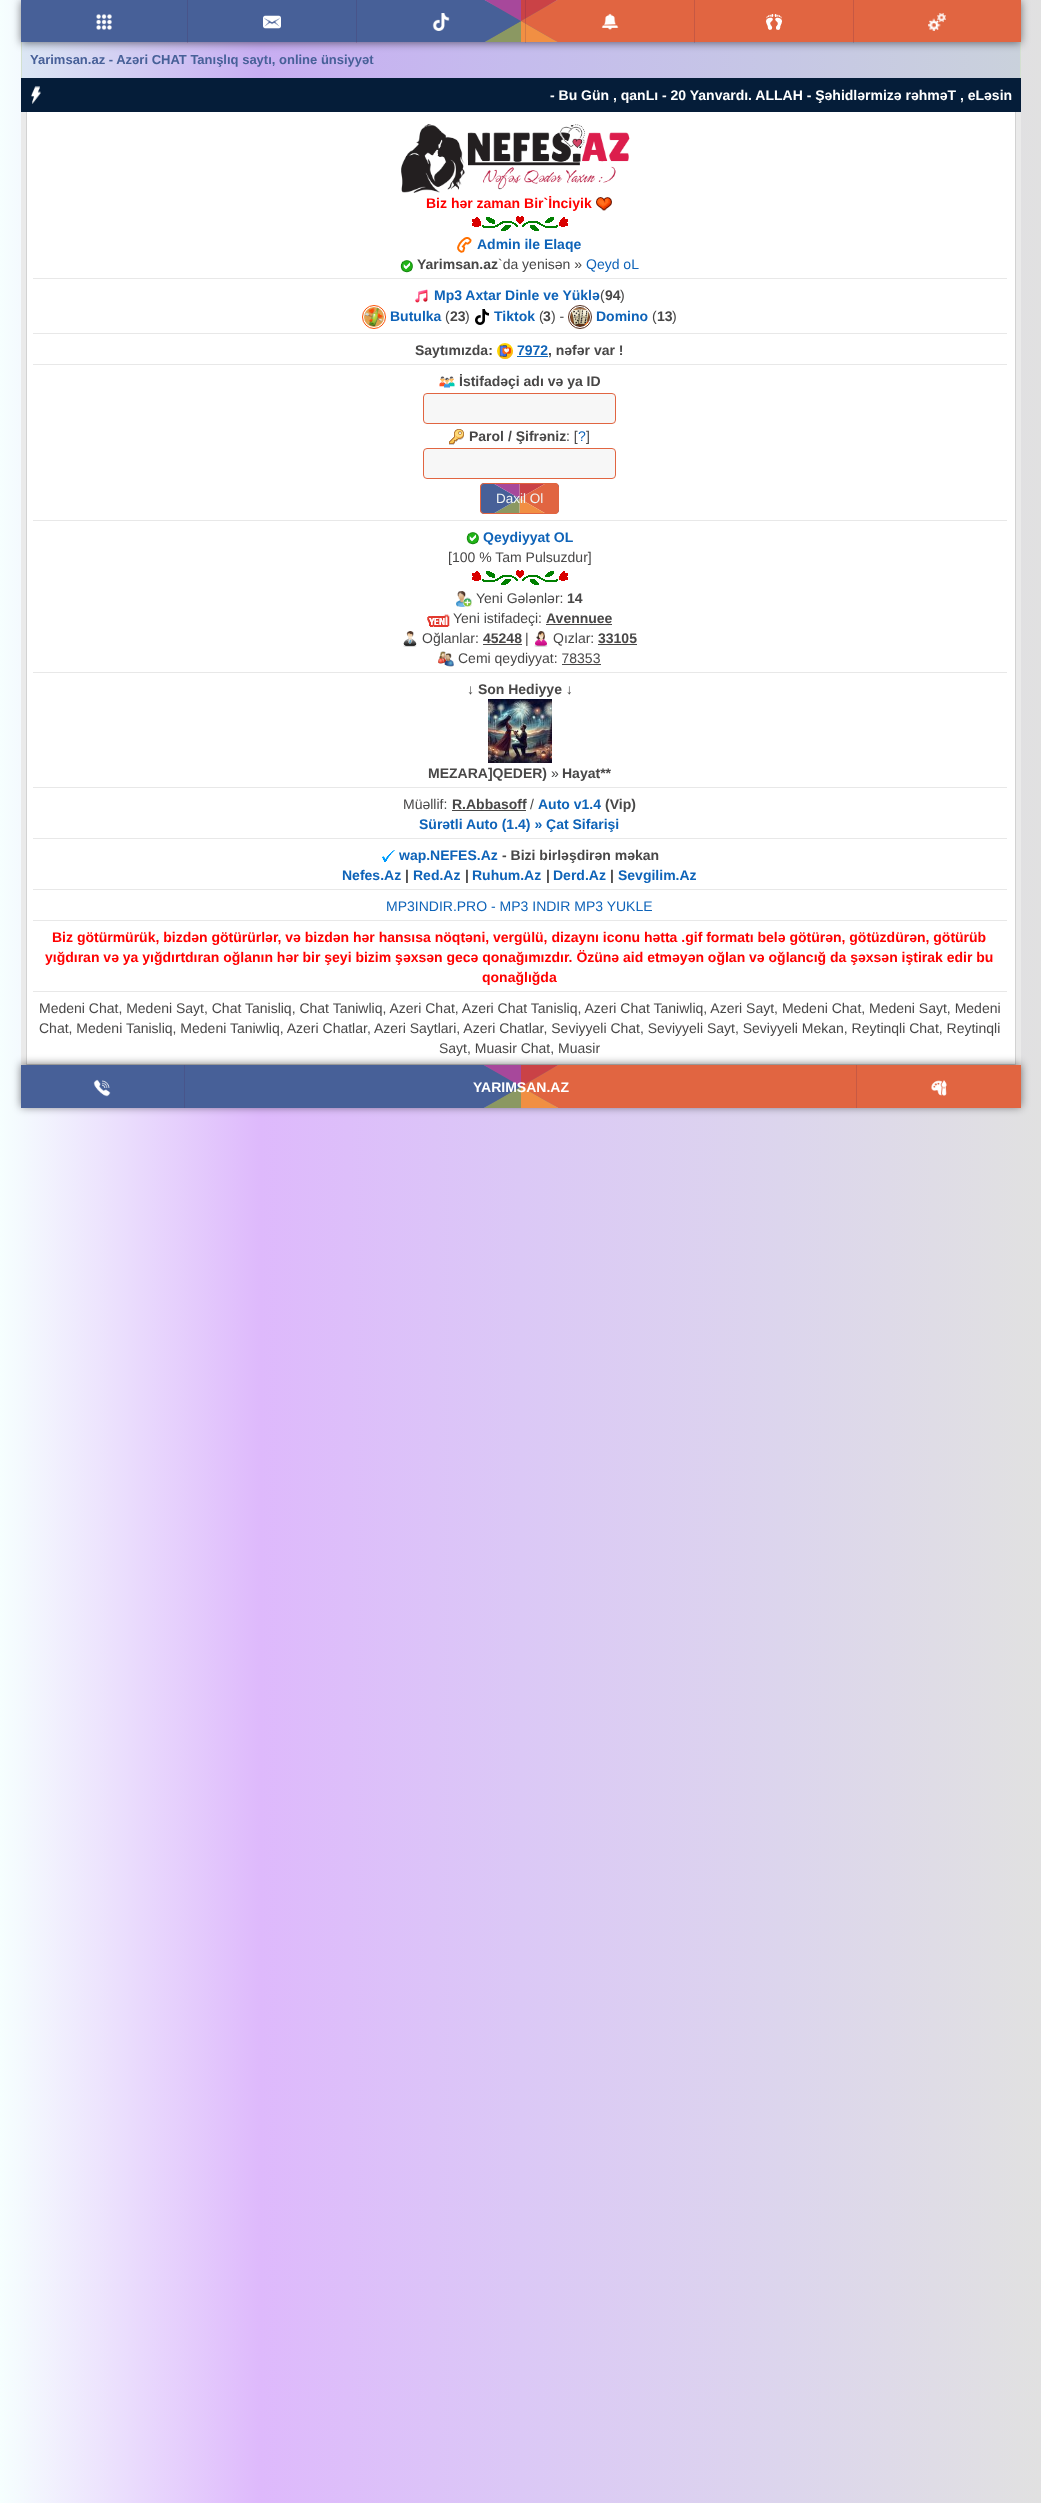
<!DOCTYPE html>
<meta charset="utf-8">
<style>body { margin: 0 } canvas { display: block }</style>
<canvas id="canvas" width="1041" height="2503"></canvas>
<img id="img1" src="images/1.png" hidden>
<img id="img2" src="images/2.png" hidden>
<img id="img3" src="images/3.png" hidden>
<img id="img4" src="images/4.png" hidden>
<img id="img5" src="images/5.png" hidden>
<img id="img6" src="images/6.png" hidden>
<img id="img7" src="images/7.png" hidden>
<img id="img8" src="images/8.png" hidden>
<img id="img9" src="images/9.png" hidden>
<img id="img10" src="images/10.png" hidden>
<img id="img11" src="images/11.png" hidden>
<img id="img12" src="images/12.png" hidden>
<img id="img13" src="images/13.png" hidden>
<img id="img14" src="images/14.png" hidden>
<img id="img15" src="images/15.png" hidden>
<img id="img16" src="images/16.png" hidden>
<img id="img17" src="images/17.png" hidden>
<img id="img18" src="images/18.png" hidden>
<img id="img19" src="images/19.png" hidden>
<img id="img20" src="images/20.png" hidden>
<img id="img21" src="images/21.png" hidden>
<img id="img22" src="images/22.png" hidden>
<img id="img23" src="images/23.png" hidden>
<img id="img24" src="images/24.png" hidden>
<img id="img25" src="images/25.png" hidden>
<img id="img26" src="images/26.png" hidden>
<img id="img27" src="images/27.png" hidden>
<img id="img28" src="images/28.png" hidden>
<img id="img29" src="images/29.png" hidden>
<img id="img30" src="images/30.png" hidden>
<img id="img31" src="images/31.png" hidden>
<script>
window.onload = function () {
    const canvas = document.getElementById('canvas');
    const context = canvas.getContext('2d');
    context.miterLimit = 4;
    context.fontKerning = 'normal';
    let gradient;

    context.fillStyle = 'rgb(255, 255, 255)';
    context.fillRect(0, 0, 1041, 2503);
    gradient = context.createLinearGradient(1041, 554, 0, 554);
    gradient.addColorStop(0, 'rgb(225, 225, 225)');
    gradient.addColorStop(0.25, 'rgb(220, 213, 237)');
    gradient.addColorStop(0.5, 'rgb(219, 200, 246)');
    gradient.addColorStop(0.75, 'rgb(222, 185, 252)');
    gradient.addColorStop(1, 'rgb(246, 255, 254)');
    context.fillStyle = gradient;
    context.fillRect(0, 0, 1041, 2503);
    gradient = context.createLinearGradient(1041, 554, 0, 554);
    gradient.addColorStop(0, 'rgb(202, 210, 219)');
    gradient.addColorStop(0.25, 'rgb(198, 199, 229)');
    gradient.addColorStop(0.5, 'rgb(197, 188, 237)');
    gradient.addColorStop(0.75, 'rgb(200, 174, 242)');
    gradient.addColorStop(1, 'rgb(221, 236, 244)');
    context.fillStyle = gradient;
    context.fillRect(22, 42, 998, 36);
    context.fillStyle = 'rgb(211, 224, 208)';
    context.fillRect(1020, 42, 1, 36);
    context.fillRect(21, 42, 1, 36);
    context.fillStyle = 'rgba(0, 0, 0, 0.5)';
    context.filter = 'blur(4.5px)';
    context.beginPath();
    context.rect(21, 1, 1000, 42);
    context.fill();
    context.filter = 'none';
    context.drawImage(document.getElementById('img1'), 21, 0, 1000, 42);
    context.drawImage(document.getElementById('img2'), 96, 14, 16, 16);
    context.fillStyle = 'rgba(79, 35, 78, 0.18)';
    context.fillRect(187, 0, 1, 43);
    context.drawImage(document.getElementById('img3'), 263, 15, 18, 14);
    context.fillRect(356, 0, 1, 43);
    context.drawImage(document.getElementById('img4'), 432, 13, 18, 18);
    context.fillRect(525, 0, 1, 43);
    context.drawImage(document.getElementById('img5'), 601, 13, 18, 17);
    context.fillRect(694, 0, 1, 43);
    context.drawImage(document.getElementById('img6'), 766, 14, 16, 16);
    context.fillRect(853, 0, 1, 43);
    context.drawImage(document.getElementById('img7'), 928, 13, 18, 18);
    context.fillStyle = 'rgb(5, 29, 57)';
    context.fillRect(21, 78, 1000, 34);
    context.drawImage(document.getElementById('img8'), 31, 86, 10, 18);
    context.fillStyle = 'rgb(234, 234, 234)';
    context.fillRect(21, 112, 1000, 953);
    context.fillStyle = 'rgb(255, 255, 255)';
    context.fillRect(27, 112, 988, 952);
    context.fillStyle = 'rgb(210, 210, 210)';
    context.fillRect(1015, 112, 1, 953);
    context.fillRect(26, 1064, 990, 1);
    context.fillRect(26, 112, 1, 953);
    context.drawImage(document.getElementById('img9'), 401, 124, 229, 69);
    context.drawImage(document.getElementById('img10'), 596, 197, 16, 14);
    context.drawImage(document.getElementById('img11'), 472, 216, 96, 15);
    context.drawImage(document.getElementById('img12'), 457, 237, 15, 16);
    context.drawImage(document.getElementById('img13'), 400, 260, 13, 13);
    context.fillStyle = 'rgb(232, 232, 232)';
    context.fillRect(33, 278, 974, 1);
    context.drawImage(document.getElementById('img14'), 415, 289, 13, 14);
    context.beginPath();
    context.arc(374, 317, 11.5, 0, 2 * Math.PI);
    context.strokeStyle = 'rgb(252, 80, 5)';
    context.stroke();
    context.beginPath();
    context.arc(580, 317, 11.5, 0, 2 * Math.PI);
    context.strokeStyle = 'rgb(85, 46, 29)';
    context.stroke();
    context.drawImage(document.getElementById('img15'), 364, 307, 20, 20);
    context.drawImage(document.getElementById('img16'), 475, 309, 14, 16);
    context.drawImage(document.getElementById('img17'), 570, 307, 20, 20);
    context.fillRect(33, 333, 974, 1);
    context.drawImage(document.getElementById('img18'), 497, 343, 16, 16);
    context.fillStyle = 'rgb(14, 99, 184)';
    context.fillRect(517, 356, 31, 1);
    context.fillStyle = 'rgb(232, 232, 232)';
    context.fillRect(33, 364, 974, 1);
    context.drawImage(document.getElementById('img19'), 439, 376, 16, 12);
    context.fillStyle = 'rgb(247, 247, 247)';
    context.beginPath();
    context.roundRect(423.5, 393.5, 192, 30, 3.5);
    context.fill();
    context.strokeStyle = 'rgb(225, 101, 65)';
    context.stroke();
    context.drawImage(document.getElementById('img20'), 449, 429, 15, 16);
    context.beginPath();
    context.roundRect(423.5, 448.5, 192, 30, 3.5);
    context.fill();
    context.stroke();
    context.drawImage(document.getElementById('img21'), 480, 483, 79, 31);
    context.beginPath();
    context.roundRect(480.5, 483.5, 78, 30, 3.5);
    context.stroke();
    context.fillStyle = 'rgb(232, 232, 232)';
    context.fillRect(33, 520, 974, 1);
    context.drawImage(document.getElementById('img13'), 466, 532, 13, 13);
    context.drawImage(document.getElementById('img11'), 472, 570, 96, 15);
    context.drawImage(document.getElementById('img22'), 456, 591, 16, 16);
    context.drawImage(document.getElementById('img23'), 427, 614, 23, 13);
    context.fillStyle = 'rgb(72, 71, 71)';
    context.fillRect(546, 624, 66, 1);
    context.drawImage(document.getElementById('img24'), 403, 631, 14, 16);
    context.fillRect(483, 644, 39, 1);
    context.drawImage(document.getElementById('img25'), 534, 631, 14, 16);
    context.fillRect(598, 644, 39, 1);
    context.drawImage(document.getElementById('img26'), 438, 651, 16, 16);
    context.fillRect(562, 664, 39, 1);
    context.fillStyle = 'rgb(232, 232, 232)';
    context.fillRect(33, 672, 974, 1);
    context.drawImage(document.getElementById('img27'), 488, 699, 64, 64);
    context.fillRect(33, 787, 974, 1);
    context.fillStyle = 'rgb(72, 71, 71)';
    context.fillRect(452, 810, 74, 1);
    context.fillStyle = 'rgb(232, 232, 232)';
    context.fillRect(33, 838, 974, 1);
    context.drawImage(document.getElementById('img28'), 382, 850, 13, 12);
    context.fillRect(33, 889, 974, 1);
    context.fillRect(33, 920, 974, 1);
    context.fillRect(33, 991, 974, 1);
    context.fillStyle = 'rgba(0, 0, 0, 0.5)';
    context.filter = 'blur(4.5px)';
    context.beginPath();
    context.rect(21, 1064, 1000, 43);
    context.fill();
    context.filter = 'none';
    context.drawImage(document.getElementById('img29'), 21, 1065, 1000, 43);
    context.drawImage(document.getElementById('img30'), 93, 1079, 18, 18);
    context.fillStyle = 'rgb(72, 85, 139)';
    context.fillRect(184, 1065, 1, 43);
    context.fillStyle = 'rgb(199, 89, 67)';
    context.fillRect(856, 1065, 1, 43);
    context.drawImage(document.getElementById('img31'), 931, 1080, 16, 16);
    context.font = 'bold 13px Liberation Sans';
    context.fillStyle = 'rgb(71, 96, 152)';
    context.fillText('Yarimsan.az - Azəri CHAT Tanışlıq saytı, online ünsiyyət', 30, 64);
    context.font = 'bold 14px Liberation Sans';
    context.fillStyle = 'rgb(255, 255, 255)';
    context.fillText('- Bu Gün , qanLı - 20 Yanvardı. ALLAH - Şəhidlərmizə rəhməT , eLəsin', 550, 100);
    context.fillStyle = 'rgb(255, 0, 0)';
    context.fillText('Biz hər zaman Bir`İnciyik', 426, 208);
    context.fillStyle = 'rgb(14, 99, 184)';
    context.fillText('Admin ile Elaqe', 477, 249);
    context.fillStyle = 'rgb(72, 71, 71)';
    context.fillText('Yarimsan.az', 417, 269);
    context.font = '14px Liberation Sans';
    context.fillText('`da yenisən »', 498, 269);
    context.fillStyle = 'rgb(14, 99, 184)';
    context.fillText('Qeyd oL', 586, 269);
    context.font = 'bold 14px Liberation Sans';
    context.fillText('Mp3 Axtar Dinle ve Yüklə', 434, 300);
    context.font = '14px Liberation Sans';
    context.fillStyle = 'rgb(72, 71, 71)';
    context.fillText('(', 600, 300);
    context.font = 'bold 14px Liberation Sans';
    context.fillText('94', 605, 300);
    context.font = '14px Liberation Sans';
    context.fillText(')', 620, 300);
    context.font = 'bold 14px Liberation Sans';
    context.fillStyle = 'rgb(14, 99, 184)';
    context.fillText('Butulka', 390, 321);
    context.font = '14px Liberation Sans';
    context.fillStyle = 'rgb(72, 71, 71)';
    context.fillText('(', 445, 321);
    context.font = 'bold 14px Liberation Sans';
    context.fillText('23', 450, 321);
    context.font = '14px Liberation Sans';
    context.fillText(')', 465, 321);
    context.font = 'bold 14px Liberation Sans';
    context.fillStyle = 'rgb(14, 99, 184)';
    context.fillText('Tiktok', 494, 321);
    context.font = '14px Liberation Sans';
    context.fillStyle = 'rgb(72, 71, 71)';
    context.fillText('(', 539, 321);
    context.font = 'bold 14px Liberation Sans';
    context.fillText('3', 543, 321);
    context.font = '14px Liberation Sans';
    context.fillText(') -', 551, 321);
    context.font = 'bold 14px Liberation Sans';
    context.fillStyle = 'rgb(14, 99, 184)';
    context.fillText('Domino', 596, 321);
    context.font = '14px Liberation Sans';
    context.fillStyle = 'rgb(72, 71, 71)';
    context.fillText('(', 652, 321);
    context.font = 'bold 14px Liberation Sans';
    context.fillText('13', 657, 321);
    context.font = '14px Liberation Sans';
    context.fillText(')', 672, 321);
    context.font = 'bold 14px Liberation Sans';
    context.fillText('Saytımızda:', 415, 355);
    context.fillStyle = 'rgb(14, 99, 184)';
    context.fillText('7972', 517, 355);
    context.fillStyle = 'rgb(72, 71, 71)';
    context.fillText(', nəfər var !', 548, 355);
    context.fillText('İstifadəçi adı və ya ID', 459, 386);
    context.fillText('Parol / Şifrəniz', 469, 441);
    context.font = '14px Liberation Sans';
    context.fillText(': [', 566, 441);
    context.fillStyle = 'rgb(14, 99, 184)';
    context.fillText('?', 578, 441);
    context.fillStyle = 'rgb(72, 71, 71)';
    context.fillText(']', 586, 441);
    context.font = '13.5px Liberation Sans';
    context.fillStyle = 'rgb(240, 244, 243)';
    context.fillText('Daxil Ol', 496, 503);
    context.font = 'bold 14px Liberation Sans';
    context.fillStyle = 'rgb(14, 99, 184)';
    context.fillText('Qeydiyyat OL', 483, 542);
    context.font = '14px Liberation Sans';
    context.fillStyle = 'rgb(72, 71, 71)';
    context.fillText('[100 % Tam Pulsuzdur]', 448, 562);
    context.fillText('Yeni Gələnlər:', 476, 603);
    context.font = 'bold 14px Liberation Sans';
    context.fillText('14', 567, 603);
    context.font = '14px Liberation Sans';
    context.fillText('Yeni istifadeçi:', 453, 623);
    context.font = 'bold 14px Liberation Sans';
    context.fillText('Avennuee', 546, 623);
    context.font = '14px Liberation Sans';
    context.fillText('Oğlanlar:', 422, 643);
    context.font = 'bold 14px Liberation Sans';
    context.fillText('45248', 483, 643);
    context.font = '14px Liberation Sans';
    context.fillText('|', 525, 643);
    context.fillText('Qızlar:', 553, 643);
    context.font = 'bold 14px Liberation Sans';
    context.fillText('33105', 598, 643);
    context.font = '14px Liberation Sans';
    context.fillText('Cemi qeydiyyat: 78353', 458, 663);
    context.font = 'bold 14px Liberation Sans';
    context.fillText('↓ Son Hediyye ↓', 467, 694);
    context.fillText('MEZARA]QEDER)', 428, 778);
    context.font = '14px Liberation Sans';
    context.fillText('»', 551, 778);
    context.font = 'bold 14px Liberation Sans';
    context.fillText('Hayat**', 562, 778);
    context.font = '14px Liberation Sans';
    context.fillText('Müəllif:', 403, 809);
    context.font = 'bold 14px Liberation Sans';
    context.fillText('R.Abbasoff', 452, 809);
    context.font = '14px Liberation Sans';
    context.fillText('/', 530, 809);
    context.font = 'bold 14px Liberation Sans';
    context.fillStyle = 'rgb(14, 99, 184)';
    context.fillText('Auto v1.4', 538, 809);
    context.fillStyle = 'rgb(72, 71, 71)';
    context.fillText('(Vip)', 605, 809);
    context.fillStyle = 'rgb(14, 99, 184)';
    context.fillText('Sürətli Auto (1.4) » Çat Sifarişi', 419, 829);
    context.fillText('wap.NEFES.Az', 399, 860);
    context.fillStyle = 'rgb(72, 71, 71)';
    context.fillText('- Bizi birləşdirən məkan', 502, 860);
    context.fillStyle = 'rgb(14, 99, 184)';
    context.fillText('Nefes.Az', 342, 880);
    context.fillStyle = 'rgb(72, 71, 71)';
    context.fillText('|', 405, 880);
    context.fillStyle = 'rgb(14, 99, 184)';
    context.fillText('Red.Az', 413, 880);
    context.fillStyle = 'rgb(72, 71, 71)';
    context.fillText('|', 465, 880);
    context.fillStyle = 'rgb(14, 99, 184)';
    context.fillText('Ruhum.Az', 472, 880);
    context.fillStyle = 'rgb(72, 71, 71)';
    context.fillText('|', 546, 880);
    context.fillStyle = 'rgb(14, 99, 184)';
    context.fillText('Derd.Az', 553, 880);
    context.fillStyle = 'rgb(72, 71, 71)';
    context.fillText('|', 610, 880);
    context.fillStyle = 'rgb(14, 99, 184)';
    context.fillText('Sevgilim.Az', 618, 880);
    context.font = '14px Liberation Sans';
    context.fillText('MP3INDIR.PRO - MP3 INDIR MP3 YUKLE', 386, 911);
    context.font = 'bold 14px Liberation Sans';
    context.fillStyle = 'rgb(255, 0, 0)';
    context.fillText('Biz götürmürük, bizdən götürürlər, və bizdən hər hansısa nöqtəni, vergülü, dizaynı iconu hətta .gif formatı belə götürən, götüzdürən, götürüb', 52, 942);
    context.fillText('yığdıran və ya yığdırtdıran oğlanın hər bir şeyi bizim şəxsən gecə qonağımızdır. Özünə aid etməyən oğlan və oğlancığ da şəxsən iştirak edir bu', 45, 962);
    context.fillText('qonağlığda', 482, 982);
    context.font = '14px Liberation Sans';
    context.fillStyle = 'rgb(72, 71, 71)';
    context.fillText('Medeni Chat, Medeni Sayt, Chat Tanisliq, Chat Taniwliq, Azeri Chat, Azeri Chat Tanisliq, Azeri Chat Taniwliq, Azeri Sayt, Medeni Chat, Medeni Sayt, Medeni', 39, 1013);
    context.fillText('Chat, Medeni Tanisliq, Medeni Taniwliq, Azeri Chatlar, Azeri Saytlari, Azeri Chatlar, Seviyyeli Chat, Seviyyeli Sayt, Seviyyeli Mekan, Reytinqli Chat, Reytinqli', 39, 1033);
    context.fillText('Sayt, Muasir Chat, Muasir', 439, 1053);
    context.font = 'bold 14px Liberation Sans';
    context.fillStyle = 'rgb(255, 255, 255)';
    context.fillText('YARIMSAN.AZ', 473, 1092);
};
</script>
